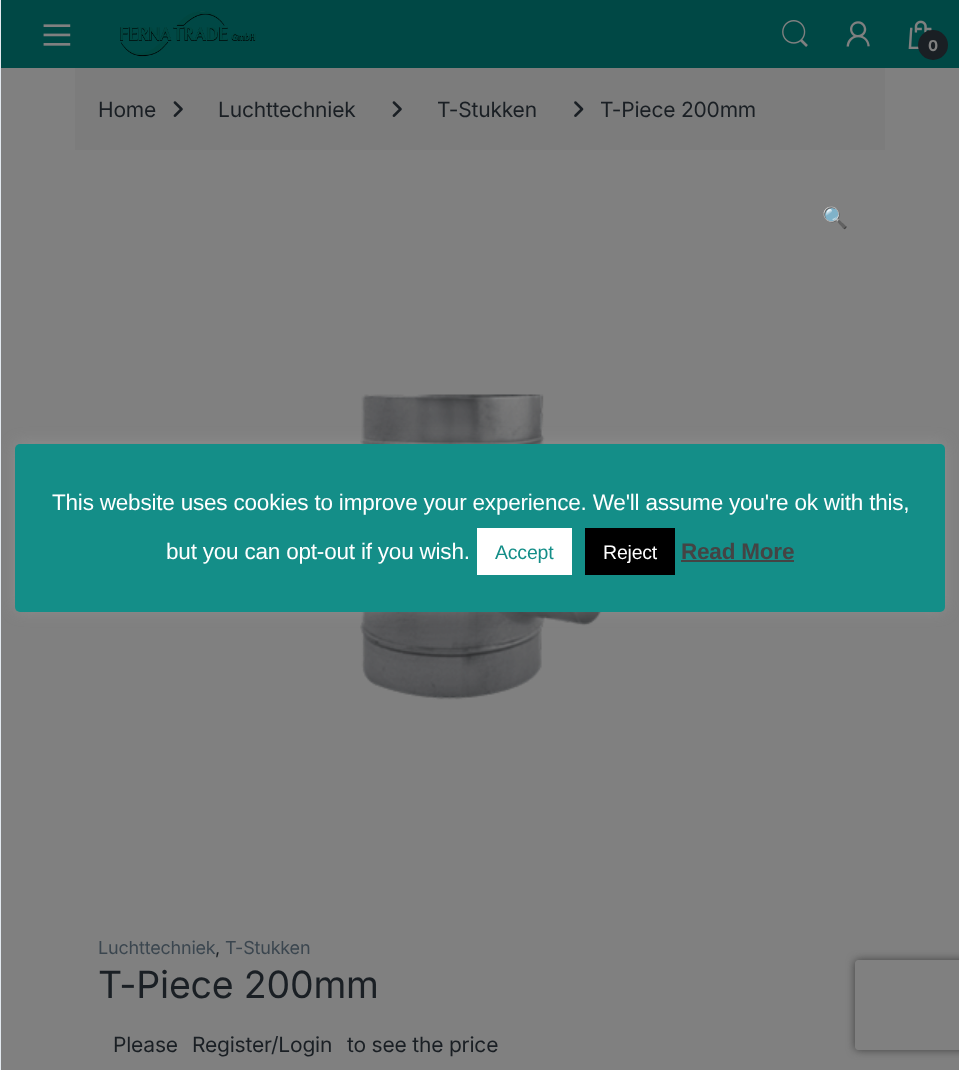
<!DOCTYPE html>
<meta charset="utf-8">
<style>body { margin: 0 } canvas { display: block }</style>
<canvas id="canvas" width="959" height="1070"></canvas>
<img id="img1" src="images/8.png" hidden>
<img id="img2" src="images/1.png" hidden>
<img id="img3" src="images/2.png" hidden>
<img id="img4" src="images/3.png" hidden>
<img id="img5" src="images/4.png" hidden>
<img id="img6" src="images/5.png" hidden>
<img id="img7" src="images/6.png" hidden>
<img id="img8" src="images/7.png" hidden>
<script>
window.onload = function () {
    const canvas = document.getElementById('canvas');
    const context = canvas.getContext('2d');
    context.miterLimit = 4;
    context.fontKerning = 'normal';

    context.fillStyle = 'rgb(128, 128, 128)';
    context.fillRect(0, 0, 959, 1070);
    context.fillStyle = 'rgb(0, 72, 69)';
    context.fillRect(1, 0, 958, 68);
    context.drawImage(document.getElementById('img1'), 360, 394, 242, 306);
    context.fillStyle = 'rgba(172, 171, 171, 0.3)';
    context.filter = 'blur(7.5px)';
    context.beginPath();
    context.roundRect(15, 443, 930, 168, 5);
    context.fill();
    context.filter = 'none';
    context.fillStyle = 'rgb(227, 233, 239)';
    context.fillRect(0, 0, 1, 1070);
    context.drawImage(document.getElementById('img2'), 43, 24, 28, 22);
    context.drawImage(document.getElementById('img3'), 120, 11, 136, 46);
    context.drawImage(document.getElementById('img4'), 782, 20, 26, 27);
    context.drawImage(document.getElementById('img5'), 846, 21, 24, 26);
    context.drawImage(document.getElementById('img6'), 908, 20, 24, 29);
    context.fillStyle = 'rgb(26, 31, 36)';
    context.beginPath();
    context.arc(933, 45, 15, 0, 2 * Math.PI);
    context.fill();
    context.fillStyle = 'rgb(124, 124, 124)';
    context.fillRect(75, 68, 810, 82);
    context.drawImage(document.getElementById('img7'), 173, 101, 10, 16);
    context.drawImage(document.getElementById('img7'), 392, 101, 10, 16);
    context.drawImage(document.getElementById('img8'), 574, 101, 10, 16);
    context.fillStyle = 'rgb(20, 142, 136)';
    context.beginPath();
    context.roundRect(15, 444, 930, 168, 5);
    context.fill();
    context.fillStyle = 'rgb(255, 255, 255)';
    context.fillRect(477, 528, 95, 47);
    context.fillStyle = 'rgb(0, 0, 0)';
    context.fillRect(585, 528, 90, 47);
    context.fillStyle = 'rgb(68, 68, 68)';
    context.fillRect(681, 560, 113, 2);
    context.save();
    context.beginPath();
    context.moveTo(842, 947);
    context.lineTo(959, 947);
    context.lineTo(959, 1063);
    context.lineTo(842, 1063);
    context.closePath();
    context.moveTo(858, 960);
    context.lineTo(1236, 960);
    context.bezierCurveTo(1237.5, 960, 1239, 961.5, 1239, 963);
    context.lineTo(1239, 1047);
    context.bezierCurveTo(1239, 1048.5, 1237.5, 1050, 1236, 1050);
    context.lineTo(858, 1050);
    context.bezierCurveTo(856.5, 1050, 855, 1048.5, 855, 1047);
    context.lineTo(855, 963);
    context.bezierCurveTo(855, 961.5, 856.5, 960, 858, 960);
    context.closePath();
    context.clip('evenodd');
    context.fillStyle = 'rgb(64, 64, 64)';
    context.filter = 'blur(4px)';
    context.beginPath();
    context.roundRect(855, 960, 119, 90, 3);
    context.fill();
    context.filter = 'none';
    context.restore();
    context.letterSpacing = '-0.2px';
    context.font = 'bold 15px Inter';
    context.fillStyle = 'rgb(128, 128, 128)';
    context.fillText('0', 928, 51);
    context.font = '21px Inter';
    context.fillStyle = 'rgb(26, 31, 36)';
    context.fillText('Home', 98, 117);
    context.fillText('Luchttechniek', 218, 117);
    context.fillText('T-Stukken', 437, 117);
    context.fillText('T-Piece 200mm', 600, 117);
    context.font = '21px Noto Color Emoji';
    context.fillText('🔍', 822, 225);
    context.font = '18px Inter';
    context.fillStyle = 'rgb(59, 70, 79)';
    context.fillText('Luchttechniek', 98, 954);
    context.fillStyle = 'rgb(26, 31, 36)';
    context.fillText(',', 215, 954);
    context.fillStyle = 'rgb(59, 70, 79)';
    context.fillText('T-Stukken', 225, 954);
    context.font = '37.5px Inter';
    context.fillStyle = 'rgb(26, 31, 36)';
    context.fillText('T-Piece 200mm', 98, 998);
    context.font = '21px Inter';
    context.fillText('Please', 113, 1052);
    context.fillText('Register/Login', 192, 1052);
    context.fillText('to see the price', 347, 1052);
    context.font = '22.5px Liberation Sans';
    context.fillStyle = 'rgb(255, 255, 255)';
    context.fillText('This website uses cookies to improve your experience. We\'ll assume you\'re ok with this,', 52, 510);
    context.fillText('but you can opt-out if you wish.', 166, 559);
    context.font = '19.5px Liberation Sans';
    context.fillStyle = 'rgb(20, 142, 136)';
    context.fillText('Accept', 495, 559);
    context.fillStyle = 'rgb(255, 255, 255)';
    context.fillText('Reject', 603, 559);
    context.font = 'bold 22.5px Liberation Sans';
    context.fillStyle = 'rgb(68, 68, 68)';
    context.fillText('Read More', 681, 559);
};
</script>
